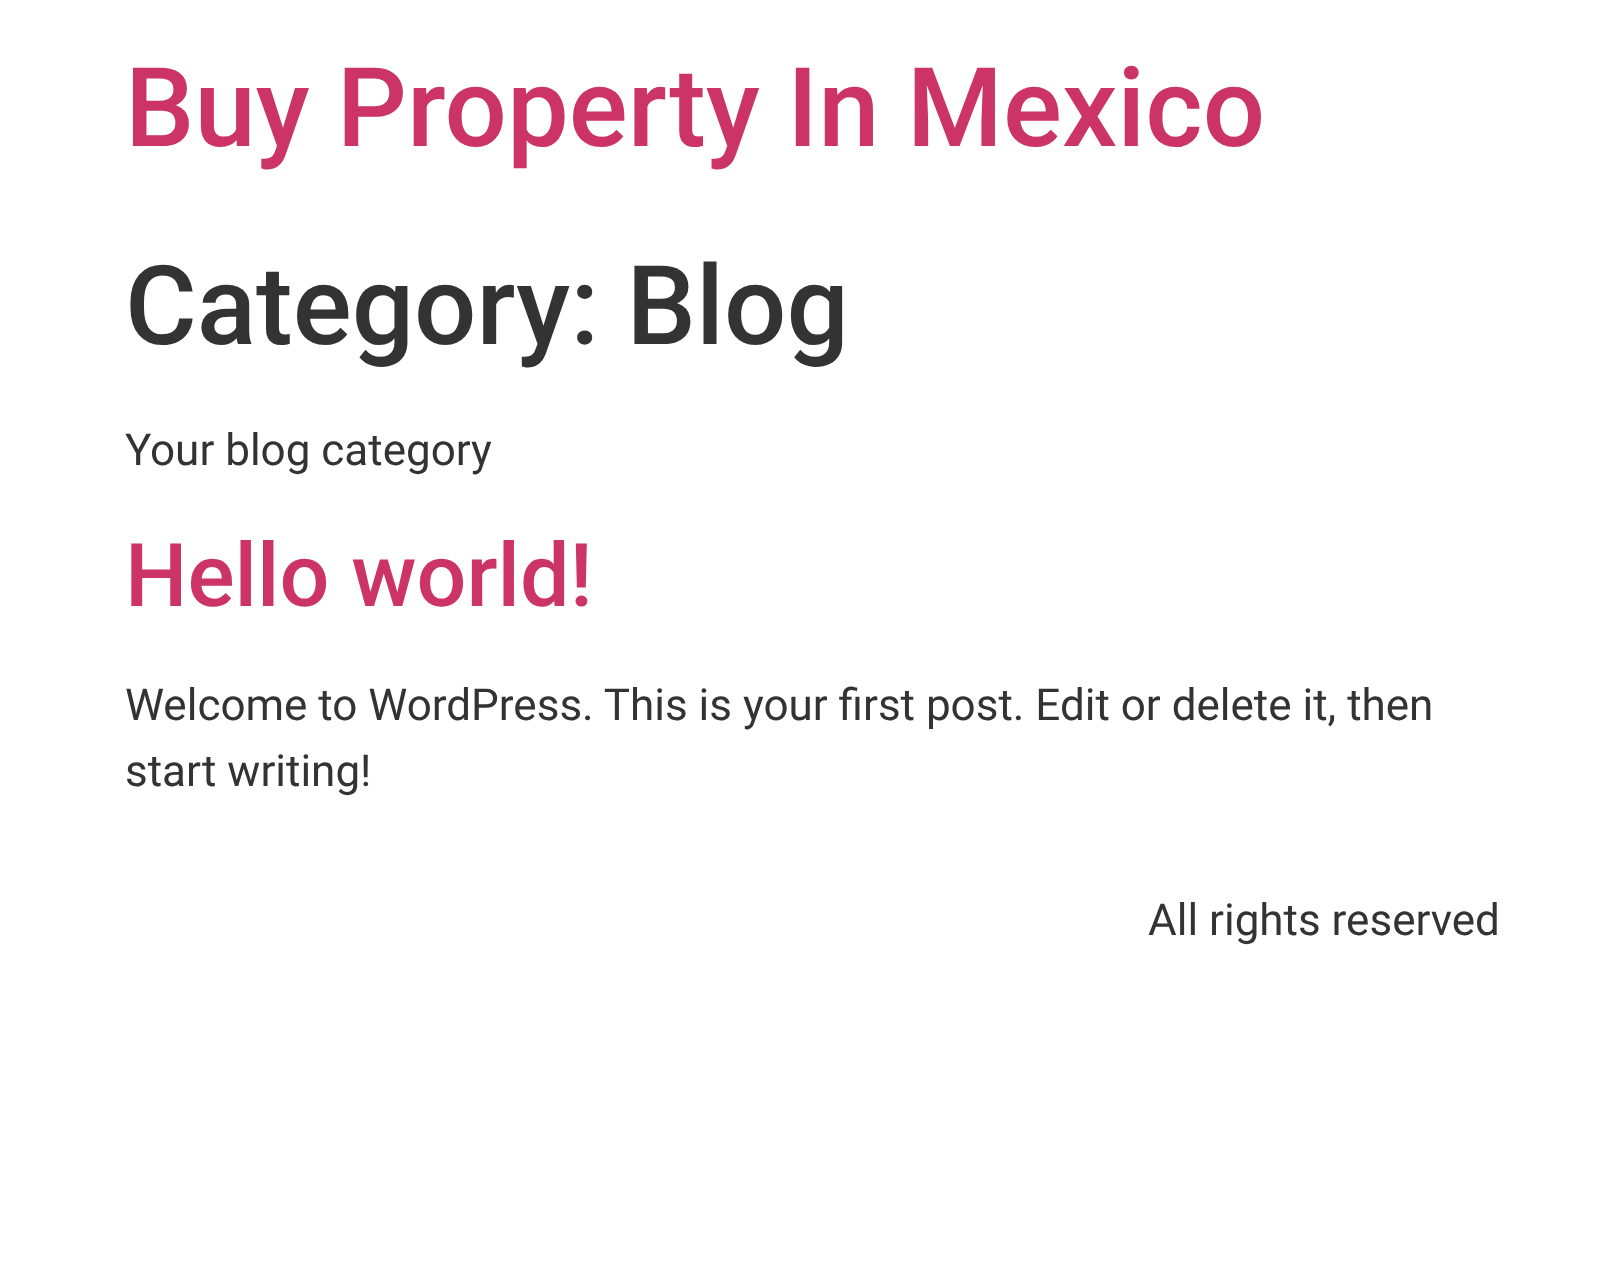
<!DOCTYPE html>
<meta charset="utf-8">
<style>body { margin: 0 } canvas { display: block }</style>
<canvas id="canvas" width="1624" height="1278"></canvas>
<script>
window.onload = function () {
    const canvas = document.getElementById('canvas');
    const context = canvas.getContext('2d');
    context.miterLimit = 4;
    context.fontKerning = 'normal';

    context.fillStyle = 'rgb(255, 255, 255)';
    context.fillRect(0, 0, 1624, 1278);
    context.font = '500 110px Roboto';
    context.fillStyle = 'rgb(204, 51, 102)';
    context.fillText('Buy Property In Mexico', 125, 146);
    context.fillStyle = 'rgb(51, 51, 51)';
    context.fillText('Category: Blog', 125, 344);
    context.font = '44px Roboto';
    context.fillText('Your blog category', 125, 465);
    context.font = '500 88px Roboto';
    context.fillStyle = 'rgb(204, 51, 102)';
    context.fillText('Hello world!', 125, 606);
    context.font = '44px Roboto';
    context.fillStyle = 'rgb(51, 51, 51)';
    context.fillText('Welcome to WordPress. This is your first post. Edit or delete it, then', 125, 720);
    context.fillText('start writing!', 125, 786);
    context.fillText('All rights reserved', 1148, 935);
};
</script>
